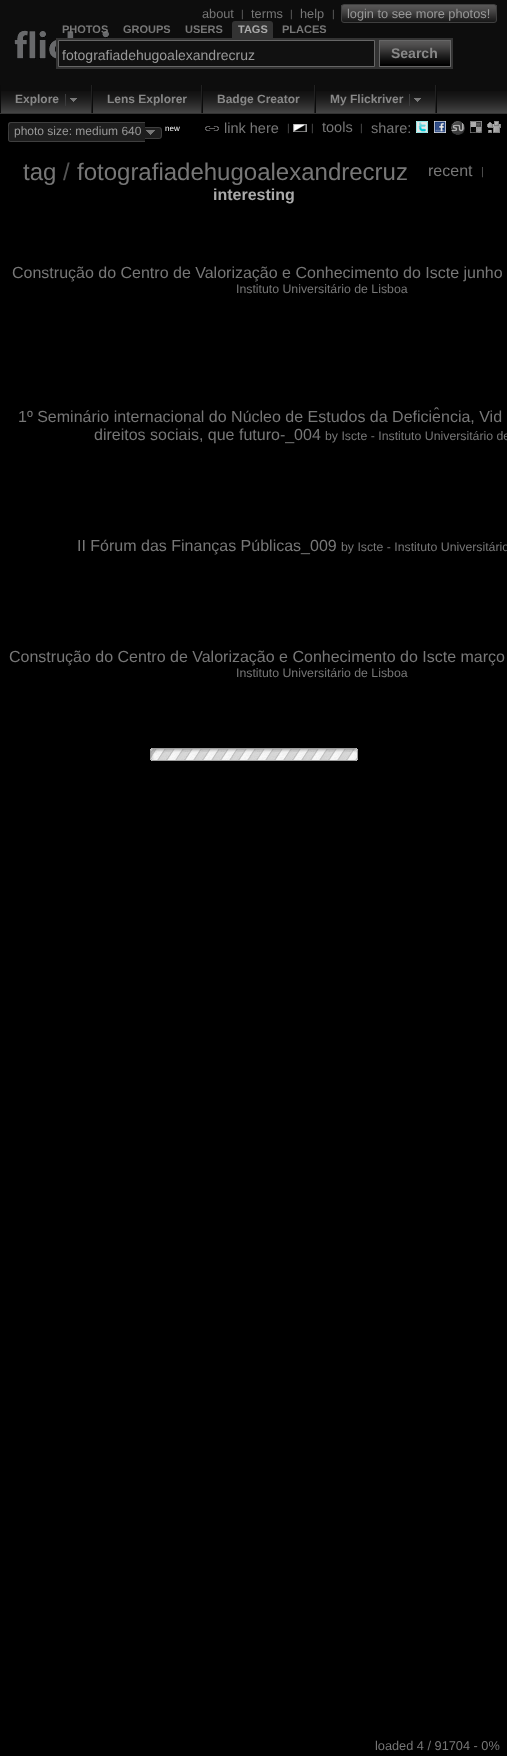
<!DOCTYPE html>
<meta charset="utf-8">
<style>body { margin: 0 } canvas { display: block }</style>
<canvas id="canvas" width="507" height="1756"></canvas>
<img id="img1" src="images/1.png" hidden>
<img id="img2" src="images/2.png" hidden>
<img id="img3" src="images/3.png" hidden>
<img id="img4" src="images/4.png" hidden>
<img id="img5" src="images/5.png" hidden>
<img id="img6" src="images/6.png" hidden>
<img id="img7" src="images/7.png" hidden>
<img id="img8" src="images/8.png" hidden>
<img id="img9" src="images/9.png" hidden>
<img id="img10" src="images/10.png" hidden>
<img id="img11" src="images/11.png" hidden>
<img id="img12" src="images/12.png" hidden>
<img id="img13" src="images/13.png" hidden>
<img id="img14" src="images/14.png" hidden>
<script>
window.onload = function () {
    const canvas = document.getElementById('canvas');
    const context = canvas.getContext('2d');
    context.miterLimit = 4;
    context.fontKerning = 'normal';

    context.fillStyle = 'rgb(0, 0, 0)';
    context.fillRect(0, 0, 507, 1756);
    context.fillStyle = 'rgb(13, 13, 13)';
    context.fillRect(0, 0, 507, 85);
    context.drawImage(document.getElementById('img1'), 341, 5, 156, 18);
    context.beginPath();
    context.roundRect(341.5, 4.5, 155, 18, 2.5);
    context.strokeStyle = 'rgb(63, 63, 63)';
    context.stroke();
    context.drawImage(document.getElementById('img2'), 14, 30, 95, 29);
    context.fillStyle = 'rgb(51, 51, 51)';
    context.beginPath();
    context.roundRect(232, 21, 41, 17, [3, 3, 0, 0]);
    context.fill();
    context.fillRect(56, 38, 397, 31);
    context.fillStyle = 'rgb(17, 17, 17)';
    context.beginPath();
    context.rect(58.5, 40.5, 316, 26);
    context.fill();
    context.strokeStyle = 'rgb(102, 102, 102)';
    context.stroke();
    context.fillStyle = 'rgb(0, 0, 0)';
    context.fillRect(380, 64, 70, 2);
    context.strokeRect(379.5, 40.5, 71, 26);
    context.drawImage(document.getElementById('img3'), 380, 41, 70, 23);
    context.fillStyle = 'rgb(13, 13, 13)';
    context.fillRect(1, 85, 506, 6);
    context.drawImage(document.getElementById('img4'), 1, 91, 506, 22);
    context.fillStyle = 'rgb(51, 51, 51)';
    context.fillRect(0, 113, 507, 1);
    context.fillStyle = 'rgb(11, 11, 11)';
    context.fillRect(436, 85, 1, 28);
    context.fillStyle = 'rgb(33, 33, 33)';
    context.fillRect(91, 85, 1, 28);
    context.fillStyle = 'rgb(11, 11, 11)';
    context.fillRect(0, 85, 1, 28);
    context.drawImage(document.getElementById('img5'), 65, 94, 12, 12);
    context.fillStyle = 'rgb(33, 33, 33)';
    context.fillRect(201, 85, 1, 28);
    context.fillStyle = 'rgb(11, 11, 11)';
    context.fillRect(92, 85, 1, 28);
    context.fillStyle = 'rgb(33, 33, 33)';
    context.fillRect(314, 85, 1, 28);
    context.fillStyle = 'rgb(11, 11, 11)';
    context.fillRect(202, 85, 1, 28);
    context.fillStyle = 'rgb(33, 33, 33)';
    context.fillRect(435, 85, 1, 28);
    context.fillStyle = 'rgb(11, 11, 11)';
    context.fillRect(315, 85, 1, 28);
    context.drawImage(document.getElementById('img5'), 409, 94, 12, 12);
    context.fillStyle = 'rgb(30, 30, 30)';
    context.beginPath();
    context.roundRect(8, 122, 133, 20, [3, 0, 0, 3]);
    context.fill();
    context.fillStyle = 'rgb(63, 63, 63)';
    context.beginPath();
    context.moveTo(11, 122);
    context.lineTo(141, 122);
    context.lineTo(141, 142);
    context.lineTo(11, 142);
    context.bezierCurveTo(9, 142, 8, 141, 8, 139);
    context.lineTo(8, 125);
    context.bezierCurveTo(8, 123, 9, 122, 11, 122);
    context.closePath();
    context.moveTo(11, 123);
    context.lineTo(141, 123);
    context.lineTo(141, 141);
    context.lineTo(10, 141);
    context.lineTo(9, 140);
    context.lineTo(9, 132);
    context.bezierCurveTo(9, 130, 8, 123, 11, 123);
    context.closePath();
    context.fill('evenodd');
    context.fillStyle = 'rgb(30, 30, 30)';
    context.fillRect(141, 122, 4, 20);
    context.fillStyle = 'rgb(63, 63, 63)';
    context.fillRect(141, 122, 4, 1);
    context.fillRect(141, 141, 4, 1);
    context.fillStyle = 'rgb(30, 30, 30)';
    context.beginPath();
    context.roundRect(145, 127, 17, 12, [0, 3, 3, 0]);
    context.fill();
    context.fillStyle = 'rgb(63, 63, 63)';
    context.beginPath();
    context.moveTo(145, 127);
    context.lineTo(154.5, 127);
    context.bezierCurveTo(161, 127, 162, 126.5, 162, 133);
    context.bezierCurveTo(162, 139.5, 161, 139, 154.5, 139);
    context.lineTo(145, 139);
    context.closePath();
    context.moveTo(145, 128);
    context.lineTo(154.5, 128);
    context.bezierCurveTo(160.5, 128, 161, 127, 161, 133);
    context.bezierCurveTo(161, 139, 160.5, 138, 154.5, 138);
    context.lineTo(145, 138);
    context.closePath();
    context.fill('evenodd');
    context.drawImage(document.getElementById('img6'), 146, 130, 9, 5);
    context.drawImage(document.getElementById('img7'), 205, 126, 14, 5);
    context.drawImage(document.getElementById('img8'), 293, 124, 14, 8);
    context.drawImage(document.getElementById('img9'), 416, 121, 12, 12);
    context.drawImage(document.getElementById('img10'), 434, 121, 12, 12);
    context.drawImage(document.getElementById('img11'), 451, 121, 14, 14);
    context.drawImage(document.getElementById('img12'), 470, 121, 12, 12);
    context.drawImage(document.getElementById('img13'), 487, 121, 14, 12);
    context.drawImage(document.getElementById('img14'), 150, 748, 208, 13);
    context.font = '12.75px Liberation Sans';
    context.fillStyle = 'rgb(119, 119, 119)';
    context.fillText('about', 202, 18);
    context.fillText('help', 300, 18);
    context.font = '10px Liberation Sans';
    context.fillStyle = 'rgb(102, 102, 102)';
    context.fillText('|', 241, 17);
    context.font = '12.75px Liberation Sans';
    context.fillStyle = 'rgb(119, 119, 119)';
    context.fillText('terms', 251, 18);
    context.font = '10px Liberation Sans';
    context.fillStyle = 'rgb(102, 102, 102)';
    context.fillText('|', 290, 17);
    context.fillText('|', 332, 17);
    context.font = '12.75px Liberation Sans';
    context.fillStyle = 'rgb(153, 153, 153)';
    context.fillText('login to see more photos!', 347, 18);
    context.font = 'bold 11px Liberation Sans';
    context.fillStyle = 'rgb(119, 119, 119)';
    context.fillText('PHOTOS', 62, 33);
    context.fillText('GROUPS', 123, 33);
    context.fillText('USERS', 185, 33);
    context.fillStyle = 'rgb(170, 170, 170)';
    context.fillText('TAGS', 238, 33);
    context.fillStyle = 'rgb(119, 119, 119)';
    context.fillText('PLACES', 282, 33);
    context.font = '14px Liberation Sans';
    context.fillStyle = 'rgb(153, 153, 153)';
    context.fillText('fotografiadehugoalexandrecruz', 62, 60);
    context.font = 'bold 14px Liberation Sans';
    context.fillStyle = 'rgb(136, 136, 136)';
    context.fillText('Search', 391, 58);
    context.font = 'bold 12px Liberation Sans';
    context.fillText('Explore', 15, 103);
    context.fillText('Lens Explorer', 107, 103);
    context.fillText('Badge Creator', 217, 103);
    context.fillText('My Flickriver', 330, 103);
    context.font = '12px Liberation Sans';
    context.fillStyle = 'rgb(153, 153, 153)';
    context.fillText('photo size: medium 640', 14, 135);
    context.font = '8px Liberation Sans';
    context.fillStyle = 'rgb(255, 255, 255)';
    context.fillText('new', 165, 131);
    context.font = '14.5px Liberation Sans';
    context.fillStyle = 'rgb(119, 119, 119)';
    context.fillText('link here', 224, 133);
    context.font = '10px Liberation Sans';
    context.fillStyle = 'rgb(85, 85, 85)';
    context.fillText('|', 287, 131);
    context.fillText('|', 311, 131);
    context.font = '14.5px Liberation Sans';
    context.fillStyle = 'rgb(119, 119, 119)';
    context.fillText('tools', 322, 132);
    context.font = '10px Liberation Sans';
    context.fillStyle = 'rgb(85, 85, 85)';
    context.fillText('|', 360, 131);
    context.font = '14.5px Liberation Sans';
    context.fillStyle = 'rgb(119, 119, 119)';
    context.fillText('share:', 371, 133);
    context.font = '24px Liberation Sans';
    context.fillText('tag', 23, 180);
    context.fillStyle = 'rgb(85, 85, 85)';
    context.fillText('/', 63, 180);
    context.fillStyle = 'rgb(119, 119, 119)';
    context.fillText('fotografiadehugoalexandrecruz', 77, 180);
    context.font = '16px Liberation Sans';
    context.fillText('recent', 428, 176);
    context.font = '11px Liberation Sans';
    context.fillStyle = 'rgb(85, 85, 85)';
    context.fillText('|', 481, 175);
    context.font = 'bold 16px Liberation Sans';
    context.fillStyle = 'rgb(170, 170, 170)';
    context.fillText('interesting', 213, 200);
    context.font = '16px Liberation Sans';
    context.fillStyle = 'rgb(119, 119, 119)';
    context.fillText('Construção do Centro de Valorização e Conhecimento do Iscte junho', 12, 278);
    context.font = '12.3px Liberation Sans';
    context.fillText('Instituto Universitário de Lisboa', 236, 293);
    context.font = '16px Liberation Sans';
    context.fillText('1º Seminário internacional do Núcleo de Estudos da Deficiência, Vid', 18, 422);
    context.fillText('direitos sociais, que futuro-_004', 94, 440);
    context.font = '12.3px Liberation Sans';
    context.fillText('by Iscte - Instituto Universitário de', 325, 440);
    context.font = '16px Liberation Sans';
    context.fillText('II Fórum das Finanças Públicas_009', 77, 551);
    context.font = '12.3px Liberation Sans';
    context.fillText('by Iscte - Instituto Universitário', 341, 551);
    context.font = '16px Liberation Sans';
    context.fillText('Construção do Centro de Valorização e Conhecimento do Iscte março', 9, 662);
    context.font = '12.3px Liberation Sans';
    context.fillText('Instituto Universitário de Lisboa', 236, 677);
    context.font = '12.75px Liberation Sans';
    context.fillText('loaded 4 / 91704 - 0%', 375, 1750);
};
</script>
